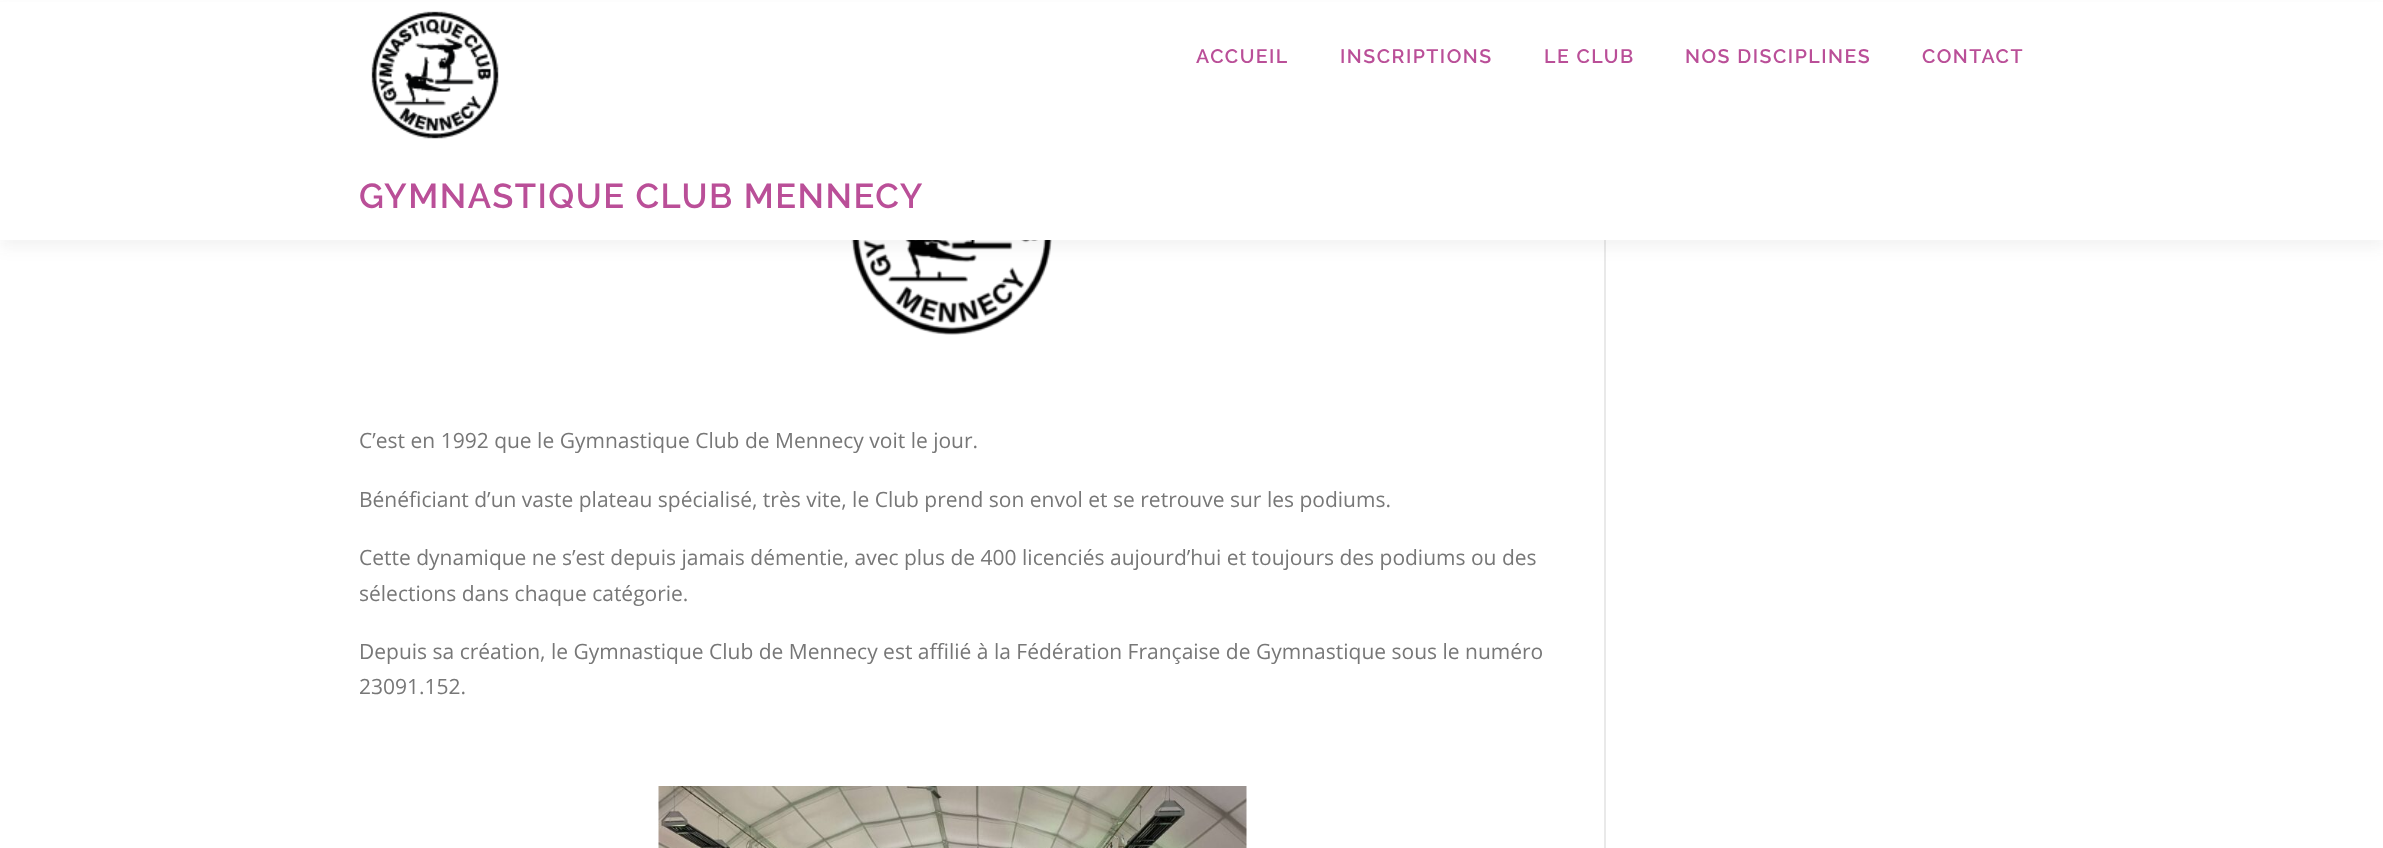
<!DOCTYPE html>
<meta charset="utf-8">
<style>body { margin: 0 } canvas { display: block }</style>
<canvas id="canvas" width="2383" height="848"></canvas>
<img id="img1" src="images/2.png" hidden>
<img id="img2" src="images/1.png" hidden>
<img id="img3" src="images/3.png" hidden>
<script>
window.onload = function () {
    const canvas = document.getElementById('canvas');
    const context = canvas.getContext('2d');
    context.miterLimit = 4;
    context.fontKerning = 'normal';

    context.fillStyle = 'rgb(255, 255, 255)';
    context.fillRect(0, 0, 2383, 848);
    context.fillStyle = 'rgb(233, 233, 233)';
    context.fillRect(1604, 240, 2, 608);
    context.drawImage(document.getElementById('img1'), 851, 240, 201, 95);
    context.fillStyle = 'rgba(50, 50, 50, 0.06)';
    context.filter = 'blur(7.5px)';
    context.beginPath();
    context.rect(0, 8, 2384, 240);
    context.fill();
    context.filter = 'none';
    context.fillStyle = 'rgb(255, 255, 255)';
    context.fillRect(0, 2, 2383, 238);
    context.drawImage(document.getElementById('img2'), 371, 11, 128, 128);
    context.drawImage(document.getElementById('img3'), 658, 786, 589, 62);
    context.letterSpacing = '1.5px';
    context.font = '600 19.5px Raleway';
    context.fillStyle = 'rgb(186, 79, 152)';
    context.fillText('ACCUEIL', 1196, 63);
    context.fillText('INSCRIPTIONS', 1340, 63);
    context.fillText('LE CLUB', 1544, 63);
    context.fillText('NOS DISCIPLINES', 1685, 63);
    context.fillText('CONTACT', 1922, 63);
    context.font = '600 34.5px Raleway';
    context.fillText('GYMNASTIQUE CLUB MENNECY', 359, 208);
    context.letterSpacing = '0px';
    context.font = '21px Open Sans';
    context.fillStyle = 'rgb(119, 119, 119)';
    context.fillText('C’est en 1992 que le Gymnastique Club de Mennecy voit le jour.', 359, 448);
    context.fillText('Bénéficiant d’un vaste plateau spécialisé, très vite, le Club prend son envol et se retrouve sur les podiums.', 359, 507);
    context.fillText('Cette dynamique ne s’est depuis jamais démentie, avec plus de 400 licenciés aujourd’hui et toujours des podiums ou des', 359, 565);
    context.fillText('sélections dans chaque catégorie.', 359, 601);
    context.fillText('Depuis sa création, le Gymnastique Club de Mennecy est affilié à la Fédération Française de Gymnastique sous le numéro', 359, 659);
    context.fillText('23091.152.', 359, 694);
};
</script>
